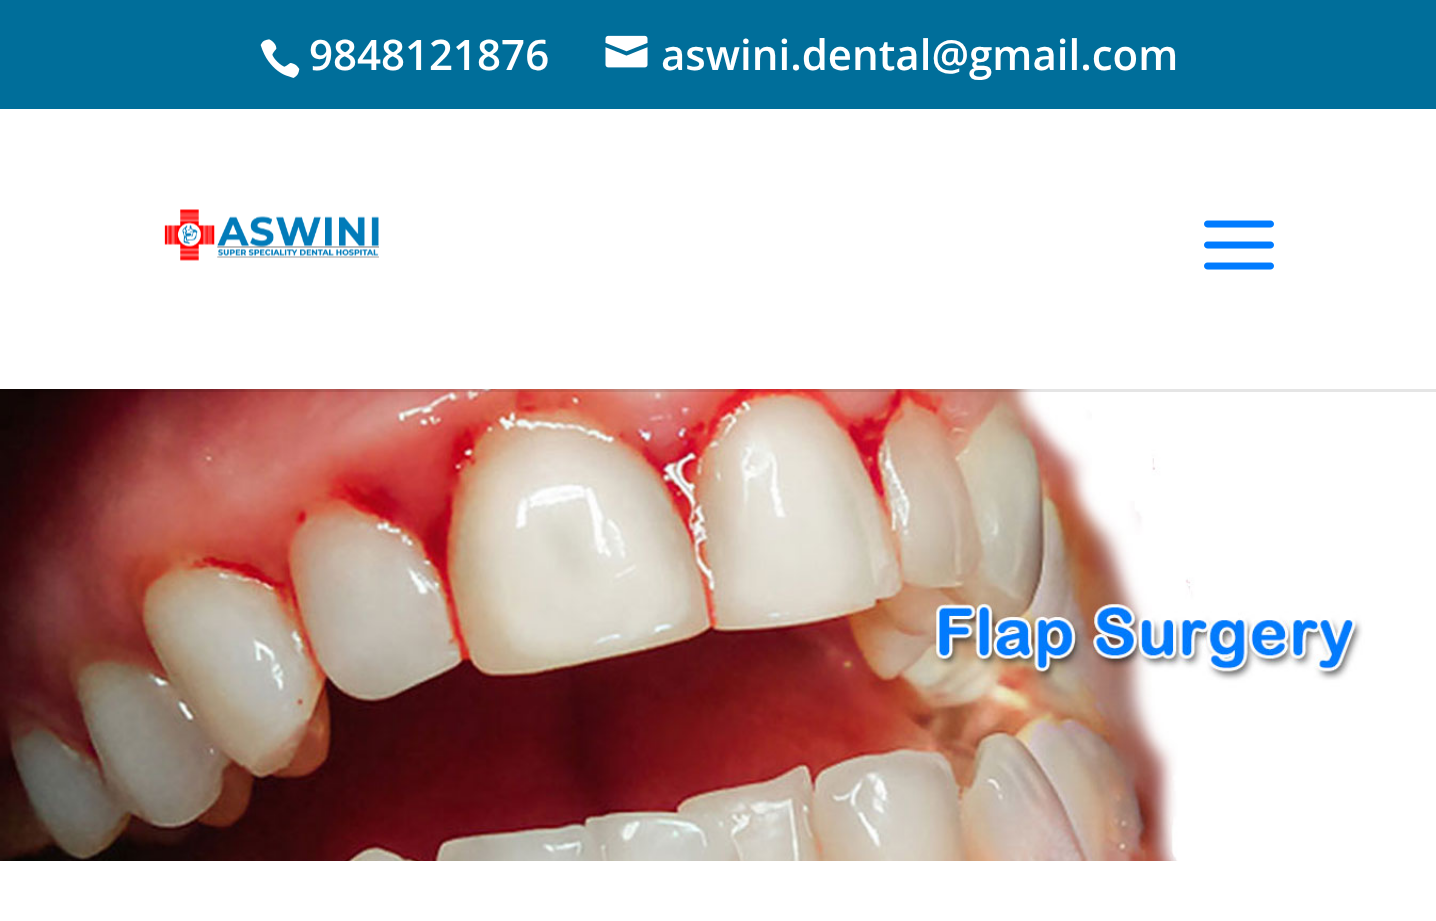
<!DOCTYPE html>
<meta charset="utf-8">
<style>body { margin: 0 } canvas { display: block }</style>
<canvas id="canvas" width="1436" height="921"></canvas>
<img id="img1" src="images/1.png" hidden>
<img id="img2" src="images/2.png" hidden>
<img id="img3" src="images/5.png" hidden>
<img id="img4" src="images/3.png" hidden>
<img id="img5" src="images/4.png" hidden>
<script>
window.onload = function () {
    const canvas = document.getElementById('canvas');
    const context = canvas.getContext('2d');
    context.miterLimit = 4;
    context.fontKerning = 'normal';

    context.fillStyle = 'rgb(255, 255, 255)';
    context.fillRect(0, 0, 1436, 921);
    context.fillStyle = 'rgb(0, 110, 154)';
    context.fillRect(0, 0, 1436, 109);
    context.drawImage(document.getElementById('img1'), 260, 39, 40, 39);
    context.drawImage(document.getElementById('img2'), 605, 35, 43, 33);
    context.drawImage(document.getElementById('img3'), 0, 389, 1436, 472);
    context.fillStyle = 'rgba(0, 0, 0, 0.1)';
    context.beginPath();
    context.moveTo(0, 388);
    context.lineTo(0, 392);
    context.lineTo(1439, 392);
    context.lineTo(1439, 112);
    context.lineTo(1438, 112);
    context.lineTo(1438, 388);
    context.closePath();
    context.fill();
    context.fillStyle = 'rgb(255, 255, 255)';
    context.fillRect(0, 388, 1436, 1);
    context.drawImage(document.getElementById('img4'), 164, 209, 215, 52);
    context.drawImage(document.getElementById('img5'), 1204, 220, 70, 50);
    context.font = '600 42px Open Sans';
    context.fillText('9848121876', 309, 70);
    context.fillText('aswini.dental@gmail.com', 661, 70);
};
</script>
